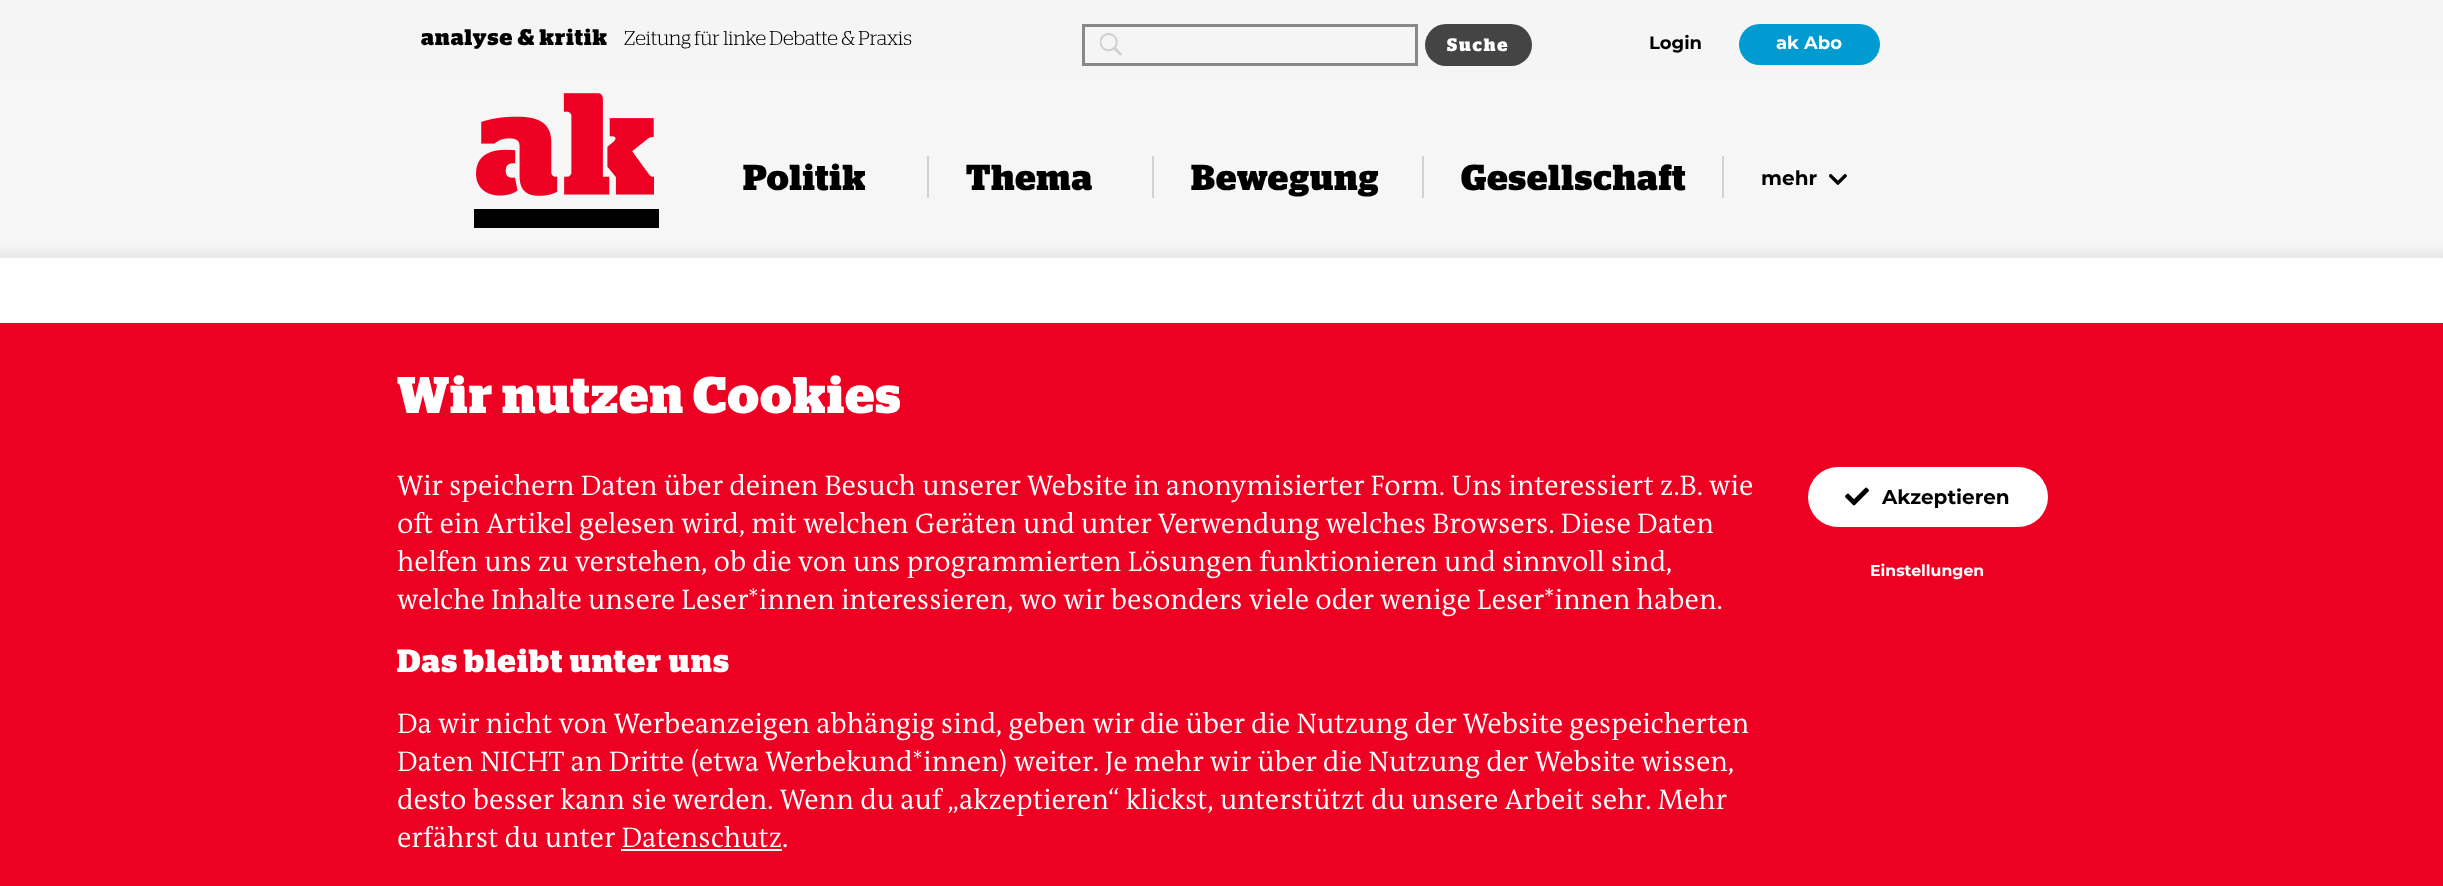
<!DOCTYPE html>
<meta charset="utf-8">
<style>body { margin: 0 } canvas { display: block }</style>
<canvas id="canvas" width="2443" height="886"></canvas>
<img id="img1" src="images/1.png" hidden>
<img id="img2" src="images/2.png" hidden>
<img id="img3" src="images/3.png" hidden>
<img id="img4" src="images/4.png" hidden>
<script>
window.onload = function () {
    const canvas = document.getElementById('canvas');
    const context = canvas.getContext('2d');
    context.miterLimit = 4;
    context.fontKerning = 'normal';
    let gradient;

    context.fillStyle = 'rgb(255, 255, 255)';
    context.fillRect(0, 0, 2443, 886);
    context.fillStyle = 'rgb(245, 245, 245)';
    context.fillRect(0, 0, 2443, 78);
    context.drawImage(document.getElementById('img1'), 1100, 33, 22, 23);
    context.strokeStyle = 'rgb(136, 136, 136)';
    context.lineWidth = 3;
    context.strokeRect(1083.5, 25.5, 333, 39);
    context.fillStyle = 'rgb(68, 68, 68)';
    context.beginPath();
    context.roundRect(1425, 24, 107, 42, 21);
    context.fill();
    context.fillStyle = 'rgb(0, 155, 209)';
    context.beginPath();
    context.roundRect(1739, 24, 141, 41, 20.5);
    context.fill();
    gradient = context.createLinearGradient(1222, 258, 1222, 78);
    gradient.addColorStop(0, 'rgb(231, 231, 231)');
    gradient.addColorStop(0.07, 'rgb(246, 246, 246)');
    context.fillStyle = gradient;
    context.fillRect(0, 78, 2443, 180);
    context.drawImage(document.getElementById('img2'), 476, 93, 178, 103);
    context.fillStyle = 'rgb(0, 0, 0)';
    context.fillRect(474, 209, 185, 19);
    context.fillStyle = 'rgb(210, 210, 210)';
    context.fillRect(927, 156, 2, 42);
    context.fillRect(1152, 156, 2, 42);
    context.fillRect(1422, 156, 2, 42);
    context.fillRect(1722, 156, 2, 42);
    context.drawImage(document.getElementById('img3'), 1829, 173, 18, 12);
    context.fillStyle = 'rgb(238, 0, 34)';
    context.fillRect(0, 323, 2443, 563);
    context.fillStyle = 'rgb(255, 255, 255)';
    context.fillRect(621, 849, 161, 2);
    context.beginPath();
    context.roundRect(1808, 467, 240, 60, 30);
    context.fill();
    context.drawImage(document.getElementById('img4'), 1845, 487, 24, 19);
    context.letterSpacing = '1.1px';
    context.font = 'bold 22.5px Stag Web';
    context.fillStyle = 'rgb(0, 0, 0)';
    context.fillText('analyse & kritik', 421, 45);
    context.letterSpacing = '0px';
    context.font = '300 20px Stag Web';
    context.fillText('Zeitung für linke Debatte & Praxis', 624, 45);
    context.letterSpacing = '2px';
    context.font = 'bold 18px Stag Web';
    context.fillStyle = 'rgb(255, 255, 255)';
    context.fillText('Suche', 1447, 51);
    context.letterSpacing = '0px';
    context.font = 'bold 18px Montserrat';
    context.fillStyle = 'rgb(0, 0, 0)';
    context.fillText('Login', 1649, 49);
    context.fillStyle = 'rgb(255, 255, 255)';
    context.fillText('ak Abo', 1776, 49);
    context.letterSpacing = '1px';
    context.font = 'bold 36px Stag Web';
    context.fillStyle = 'rgb(0, 0, 0)';
    context.fillText('Politik', 743, 190);
    context.fillText('Thema', 966, 190);
    context.fillText('Bewegung', 1191, 190);
    context.fillText('Gesellschaft', 1461, 190);
    context.letterSpacing = '0px';
    context.font = 'bold 20px Montserrat';
    context.fillText('mehr', 1761, 185);
    context.letterSpacing = '1.5px';
    context.font = 'bold 51.4px Stag Web';
    context.fillStyle = 'rgb(255, 255, 255)';
    context.fillText('Wir nutzen Cookies', 397, 413);
    context.letterSpacing = '0px';
    context.font = '300 28.5px "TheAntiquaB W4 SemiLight"';
    context.fillText('Wir speichern Daten über deinen Besuch unserer Website in anonymisierter Form. Uns interessiert z.B. wie', 397, 495);
    context.fillText('oft ein Artikel gelesen wird, mit welchen Geräten und unter Verwendung welches Browsers. Diese Daten', 397, 533);
    context.fillText('helfen uns zu verstehen, ob die von uns programmierten Lösungen funktionieren und sinnvoll sind,', 397, 571);
    context.fillText('welche Inhalte unsere Leser*innen interessieren, wo wir besonders viele oder wenige Leser*innen haben.', 397, 609);
    context.letterSpacing = '1.6px';
    context.font = 'bold 32px Stag Web';
    context.fillText('Das bleibt unter uns', 397, 672);
    context.letterSpacing = '0px';
    context.font = '300 28.5px "TheAntiquaB W4 SemiLight"';
    context.fillText('Da wir nicht von Werbeanzeigen abhängig sind, geben wir die über die Nutzung der Website gespeicherten', 397, 733);
    context.fillText('Daten NICHT an Dritte (etwa Werbekund*innen) weiter. Je mehr wir über die Nutzung der Website wissen,', 397, 771);
    context.fillText('desto besser kann sie werden. Wenn du auf „akzeptieren“ klickst, unterstützt du unsere Arbeit sehr. Mehr', 397, 809);
    context.fillText('erfährst du unter Datenschutz.', 397, 847);
    context.font = 'bold 20px Montserrat';
    context.fillStyle = 'rgb(0, 0, 0)';
    context.fillText('Akzeptieren', 1882, 504);
    context.font = 'bold 15.75px Montserrat';
    context.fillStyle = 'rgb(255, 255, 255)';
    context.fillText('Einstellungen', 1870, 576);
};
</script>
